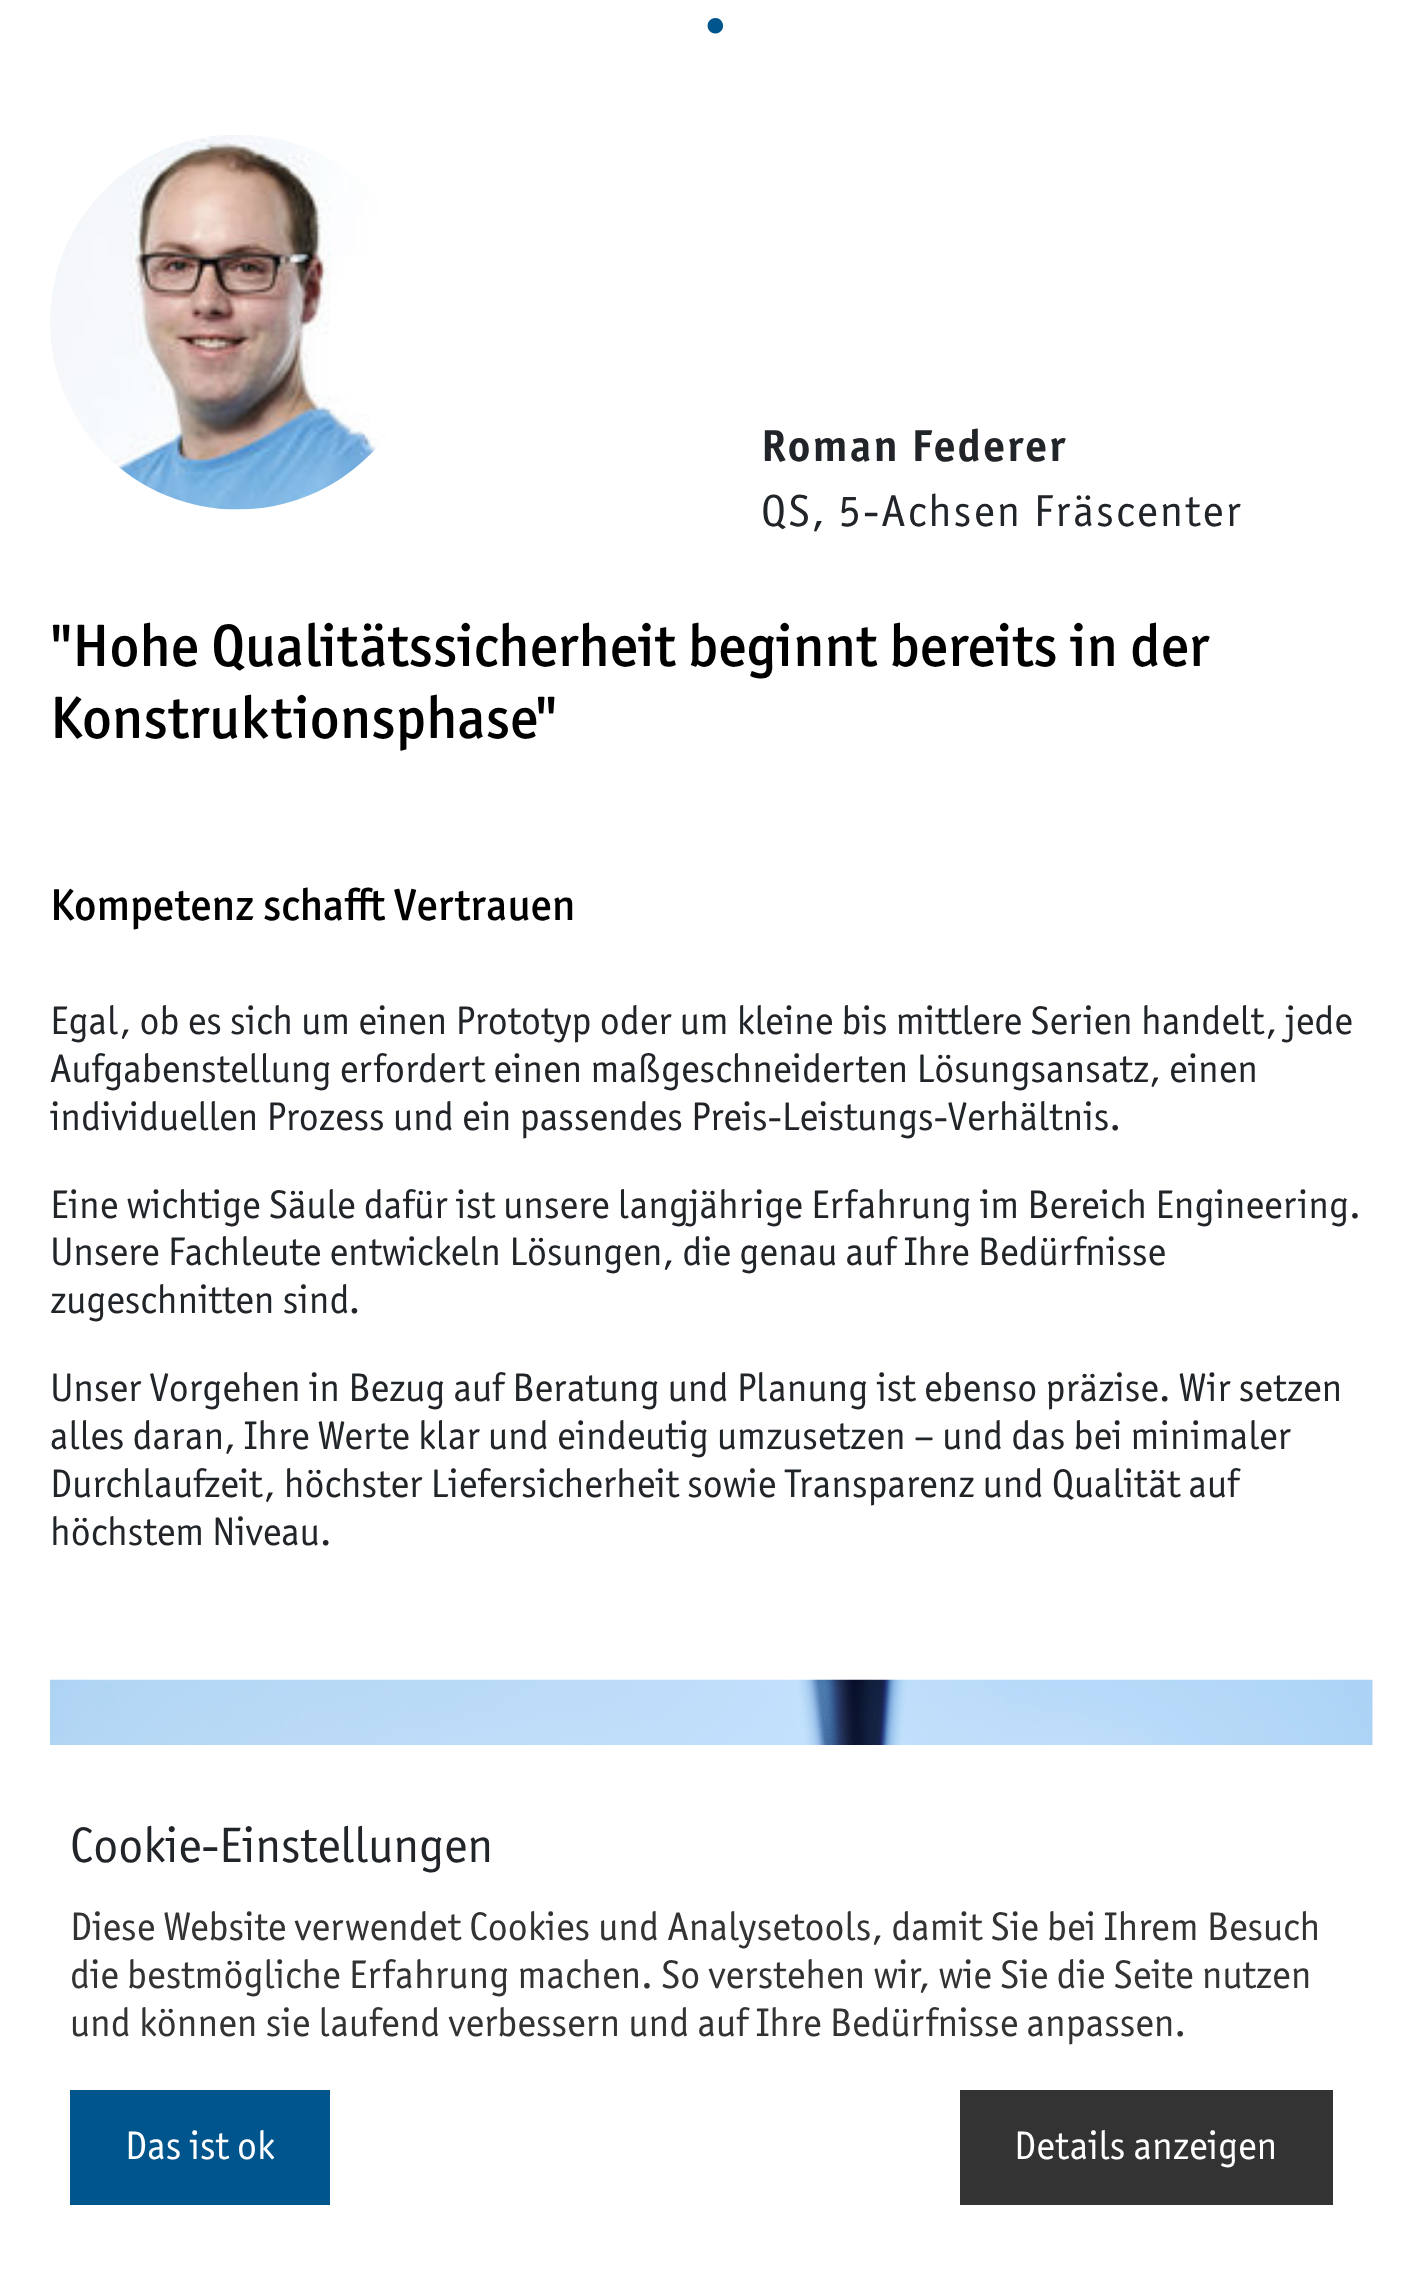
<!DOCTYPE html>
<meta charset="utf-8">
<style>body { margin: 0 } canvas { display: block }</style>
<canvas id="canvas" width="1421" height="2275"></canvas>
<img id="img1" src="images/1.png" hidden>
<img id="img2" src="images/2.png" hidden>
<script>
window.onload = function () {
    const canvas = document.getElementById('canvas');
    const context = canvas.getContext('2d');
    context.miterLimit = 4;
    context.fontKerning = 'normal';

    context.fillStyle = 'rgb(255, 255, 255)';
    context.fillRect(0, 0, 1421, 2275);
    context.drawImage(document.getElementById('img1'), 50, 135, 336, 375);
    context.drawImage(document.getElementById('img2'), 50, 1679, 1323, 66);
    context.fillStyle = 'rgb(0, 85, 140)';
    context.fillRect(70, 2090, 260, 115);
    context.fillStyle = 'rgb(51, 51, 51)';
    context.fillRect(960, 2090, 373, 115);
    context.font = '110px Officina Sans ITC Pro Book';
    context.fillStyle = 'rgb(0, 85, 140)';
    context.fillText('.', 699, 32);
    context.letterSpacing = '2.25px';
    context.font = 'bold 45px Officina Sans ITC Pro Book';
    context.fillStyle = 'rgb(33, 37, 41)';
    context.fillText('Roman Federer', 761, 461);
    context.font = '45px Officina Sans ITC Pro Book';
    context.fillText('QS, 5-Achsen Fräscenter', 761, 526);
    context.letterSpacing = '0px';
    context.font = '500 60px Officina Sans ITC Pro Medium';
    context.fillStyle = 'rgb(0, 0, 0)';
    context.fillText('"Hohe Qualitätssicherheit beginnt bereits in der', 50, 666);
    context.fillText('Konstruktionsphase"', 50, 738);
    context.font = '500 45px Officina Sans ITC Pro Medium';
    context.fillText('Kompetenz schafft Vertrauen', 50, 920);
    context.font = '40px Officina Sans ITC Pro Book';
    context.fillStyle = 'rgb(33, 37, 41)';
    context.fillText('Egal, ob es sich um einen Prototyp oder um kleine bis mittlere Serien handelt, jede', 50, 1034);
    context.fillText('Aufgabenstellung erfordert einen maßgeschneiderten Lösungsansatz, einen', 50, 1082);
    context.fillText('individuellen Prozess und ein passendes Preis-Leistungs-Verhältnis.', 50, 1130);
    context.fillText('Eine wichtige Säule dafür ist unsere langjährige Erfahrung im Bereich Engineering.', 50, 1218);
    context.fillText('Unsere Fachleute entwickeln Lösungen, die genau auf Ihre Bedürfnisse', 50, 1265);
    context.fillText('zugeschnitten sind.', 50, 1313);
    context.fillText('Unser Vorgehen in Bezug auf Beratung und Planung ist ebenso präzise. Wir setzen', 50, 1401);
    context.fillText('alles daran, Ihre Werte klar und eindeutig umzusetzen – und das bei minimaler', 50, 1449);
    context.fillText('Durchlaufzeit, höchster Liefersicherheit sowie Transparenz und Qualität auf', 50, 1497);
    context.fillText('höchstem Niveau.', 50, 1545);
    context.font = '50px Officina Sans ITC Pro Book';
    context.fillText('Cookie-Einstellungen', 70, 1862);
    context.font = '40px Officina Sans ITC Pro Book';
    context.fillStyle = 'rgb(51, 51, 51)';
    context.fillText('Diese Website verwendet Cookies und Analysetools, damit Sie bei Ihrem Besuch', 70, 1940);
    context.fillText('die bestmögliche Erfahrung machen. So verstehen wir, wie Sie die Seite nutzen', 70, 1988);
    context.fillText('und können sie laufend verbessern und auf Ihre Bedürfnisse anpassen.', 70, 2036);
    context.fillStyle = 'rgb(255, 255, 255)';
    context.fillText('Das ist ok', 125, 2159);
    context.fillText('Details anzeigen', 1014, 2159);
};
</script>
